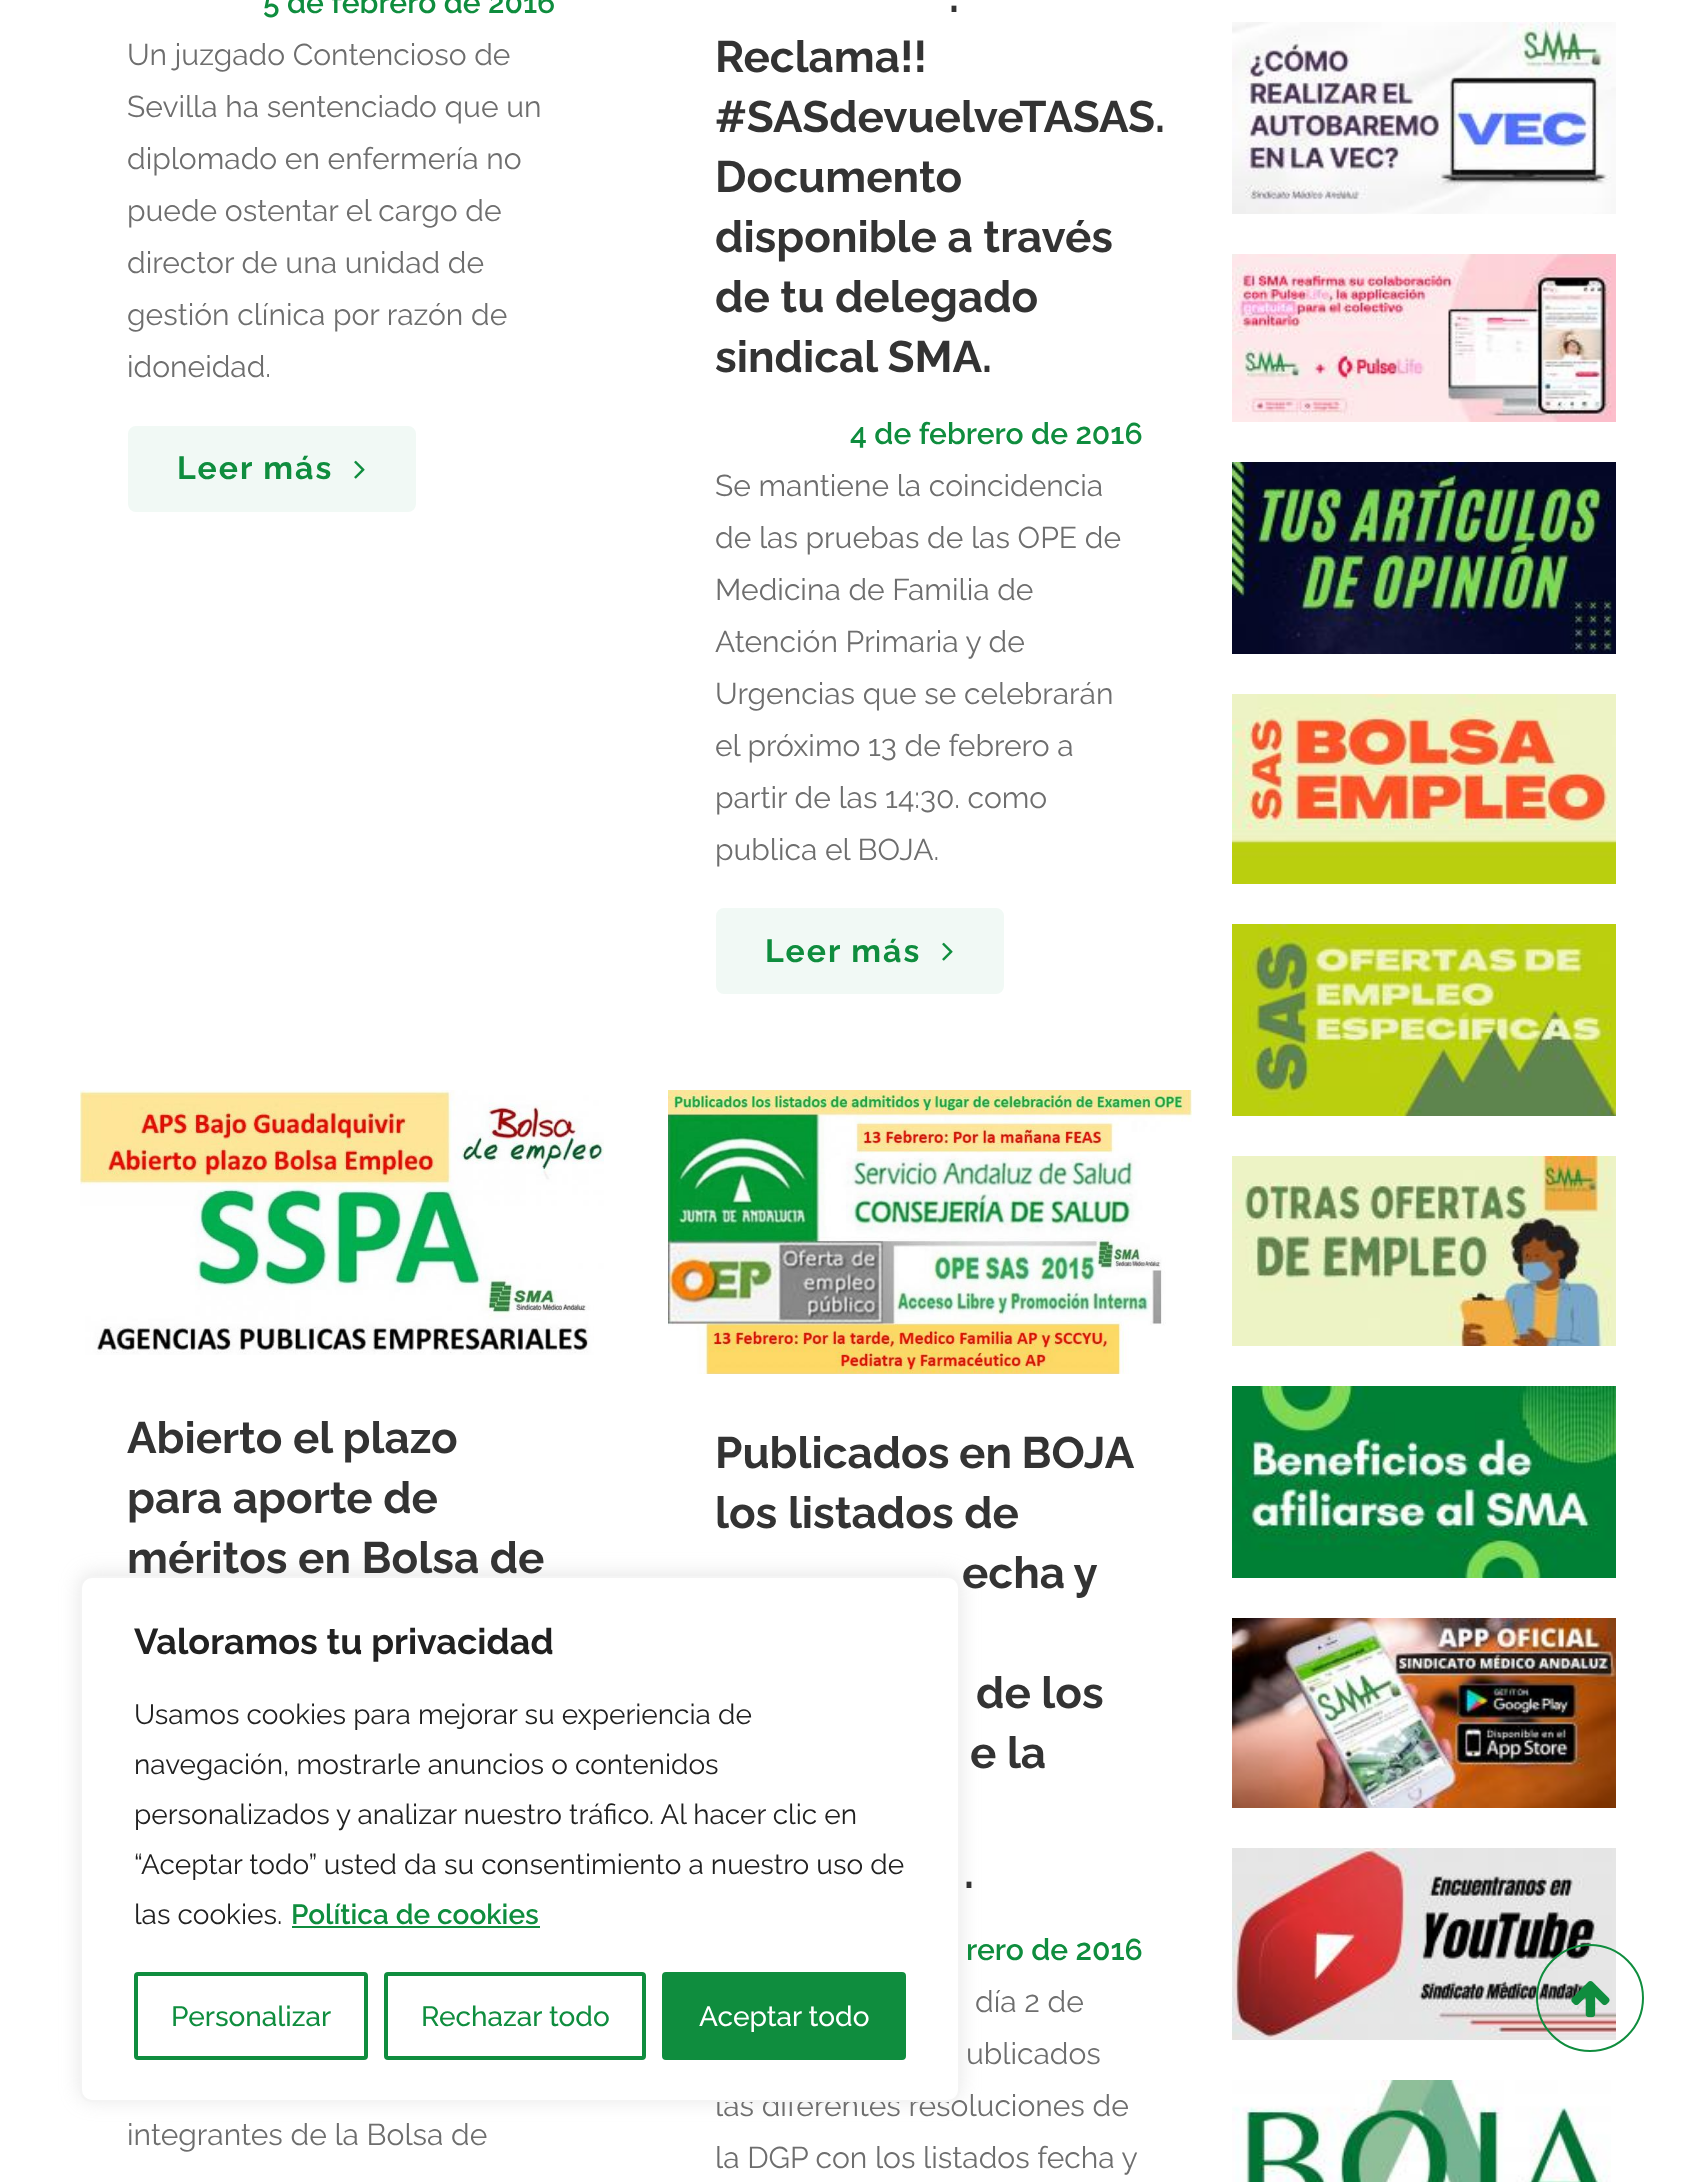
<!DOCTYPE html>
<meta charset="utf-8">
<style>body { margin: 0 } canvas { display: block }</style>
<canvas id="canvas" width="1693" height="2182"></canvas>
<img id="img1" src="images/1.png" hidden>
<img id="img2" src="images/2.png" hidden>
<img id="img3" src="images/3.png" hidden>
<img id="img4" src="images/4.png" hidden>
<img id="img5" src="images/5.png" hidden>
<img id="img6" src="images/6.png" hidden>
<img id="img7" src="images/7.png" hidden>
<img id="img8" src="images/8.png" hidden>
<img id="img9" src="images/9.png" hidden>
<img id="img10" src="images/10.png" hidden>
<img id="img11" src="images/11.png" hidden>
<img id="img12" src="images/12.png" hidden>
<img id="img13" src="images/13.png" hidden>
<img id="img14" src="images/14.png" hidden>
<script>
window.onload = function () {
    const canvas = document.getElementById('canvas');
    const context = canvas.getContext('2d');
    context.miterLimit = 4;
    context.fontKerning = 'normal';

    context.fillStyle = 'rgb(255, 255, 255)';
    context.fillRect(0, 0, 1693, 2182);
    context.fillStyle = 'rgb(241, 249, 245)';
    context.beginPath();
    context.roundRect(130, 428, 284, 82, 6);
    context.fill();
    context.strokeStyle = 'rgb(241, 249, 245)';
    context.lineWidth = 4;
    context.stroke();
    context.drawImage(document.getElementById('img1'), 354, 460, 11, 19);
    context.beginPath();
    context.roundRect(718, 910, 284, 82, 6);
    context.fill();
    context.stroke();
    context.drawImage(document.getElementById('img1'), 942, 942, 11, 19);
    context.drawImage(document.getElementById('img2'), 80, 1090, 524, 265);
    context.drawImage(document.getElementById('img3'), 668, 1090, 524, 284);
    context.drawImage(document.getElementById('img4'), 1232, 22, 384, 192);
    context.drawImage(document.getElementById('img5'), 1232, 254, 384, 168);
    context.drawImage(document.getElementById('img6'), 1232, 462, 384, 192);
    context.drawImage(document.getElementById('img7'), 1232, 694, 384, 190);
    context.drawImage(document.getElementById('img8'), 1232, 924, 384, 192);
    context.drawImage(document.getElementById('img9'), 1232, 1156, 384, 190);
    context.drawImage(document.getElementById('img10'), 1232, 1386, 384, 192);
    context.drawImage(document.getElementById('img11'), 1232, 1618, 384, 190);
    context.drawImage(document.getElementById('img12'), 1232, 1848, 384, 192);
    context.drawImage(document.getElementById('img13'), 1232, 2080, 379, 102);
    context.beginPath();
    context.arc(1590, 1998, 53, 0, 2 * Math.PI);
    context.strokeStyle = 'rgb(15, 141, 62)';
    context.lineWidth = 2;
    context.stroke();
    context.drawImage(document.getElementById('img14'), 1571, 1981, 39, 37);
    context.fillStyle = 'rgba(172, 171, 171, 0.3)';
    context.filter = 'blur(10px)';
    context.beginPath();
    context.roundRect(80, 1574, 880, 526, 12);
    context.fill();
    context.filter = 'none';
    context.font = '600 30px Raleway';
    context.fillStyle = 'rgb(15, 141, 62)';
    context.fillText('5 de febrero de 2016', 263, 13);
    context.font = '30px Raleway';
    context.fillStyle = 'rgb(110, 110, 110)';
    context.fillText('Un juzgado Contencioso de', 127, 65);
    context.fillText('Sevilla ha sentenciado que un', 127, 117);
    context.fillText('diplomado en enfermería no', 127, 169);
    context.fillText('puede ostentar el cargo de', 127, 221);
    context.fillText('director de una unidad de', 127, 273);
    context.fillText('gestión clínica por razón de', 127, 325);
    context.fillText('idoneidad.', 127, 377);
    context.letterSpacing = '2px';
    context.font = 'bold 32px Raleway';
    context.fillStyle = 'rgb(15, 141, 62)';
    context.fillText('Leer más', 177, 479);
    context.letterSpacing = '0px';
    context.font = 'bold 44px Raleway';
    context.fillStyle = 'rgb(51, 51, 51)';
    context.fillText('.', 949, 12);
    context.fillText('Reclama!!', 715, 72);
    context.fillText('#SASdevuelveTASAS.', 715, 132);
    context.fillText('Documento', 715, 192);
    context.fillText('disponible a través', 715, 252);
    context.fillText('de tu delegado', 715, 312);
    context.fillText('sindical SMA.', 715, 372);
    context.font = '600 30px Raleway';
    context.fillStyle = 'rgb(15, 141, 62)';
    context.fillText('4 de febrero de 2016', 850, 444);
    context.font = '30px Raleway';
    context.fillStyle = 'rgb(110, 110, 110)';
    context.fillText('Se mantiene la coincidencia', 715, 496);
    context.fillText('de las pruebas de las OPE de', 715, 548);
    context.fillText('Medicina de Familia de', 715, 600);
    context.fillText('Atención Primaria y de', 715, 652);
    context.fillText('Urgencias que se celebrarán', 715, 704);
    context.fillText('el próximo 13 de febrero a', 715, 756);
    context.fillText('partir de las 14:30. como', 715, 808);
    context.fillText('publica el BOJA.', 715, 860);
    context.letterSpacing = '2px';
    context.font = 'bold 32px Raleway';
    context.fillStyle = 'rgb(15, 141, 62)';
    context.fillText('Leer más', 765, 962);
    context.letterSpacing = '0px';
    context.font = 'bold 44px Raleway';
    context.fillStyle = 'rgb(51, 51, 51)';
    context.fillText('Abierto el plazo', 127, 1453);
    context.fillText('para aporte de', 127, 1513);
    context.fillText('méritos en Bolsa de', 127, 1573);
    context.font = '30px Raleway';
    context.fillStyle = 'rgb(110, 110, 110)';
    context.fillText('integrantes de la Bolsa de', 127, 2145);
    context.wordSpacing = '-1px';
    context.font = 'bold 44px Raleway';
    context.fillStyle = 'rgb(51, 51, 51)';
    context.fillText('Publicados en BOJA', 715, 1468);
    context.wordSpacing = '0px';
    context.fillText('los listados de', 715, 1528);
    context.wordSpacing = '-1px';
    context.fillText('echa y', 962, 1588);
    context.wordSpacing = '0px';
    context.fillText('de los', 976, 1708);
    context.fillText('e la', 970, 1768);
    context.fillText('.', 964, 1888);
    context.font = '600 30px Raleway';
    context.fillStyle = 'rgb(15, 141, 62)';
    context.fillText('rero de 2016', 966, 1960);
    context.font = '30px Raleway';
    context.fillStyle = 'rgb(110, 110, 110)';
    context.fillText('día 2 de', 975, 2012);
    context.fillText('ublicados', 966, 2064);
    context.fillText('las diferentes resoluciones de', 715, 2116);
    context.fillText('la DGP con los listados fecha y', 715, 2168);
    context.fillStyle = 'rgb(255, 255, 255)';
    context.beginPath();
    context.roundRect(81, 1577, 878, 524, 11);
    context.fill();
    context.strokeStyle = 'rgb(244, 244, 244)';
    context.stroke();
    context.font = 'bold 36px Raleway';
    context.fillStyle = 'rgb(33, 33, 33)';
    context.fillText('Valoramos tu privacidad', 134, 1654);
    context.font = '28px Raleway';
    context.fillText('Usamos cookies para mejorar su experiencia de', 134, 1724);
    context.fillText('navegación, mostrarle anuncios o contenidos', 134, 1774);
    context.fillText('personalizados y analizar nuestro tráfico. Al hacer clic en', 134, 1824);
    context.fillText('“Aceptar todo” usted da su consentimiento a nuestro uso de', 134, 1874);
    context.fillText('las cookies.', 134, 1924);
    context.font = '600 28px Raleway';
    context.fillStyle = 'rgb(15, 141, 62)';
    context.fillText('Política de cookies', 291, 1924);
    context.fillRect(292, 1926, 248, 2);
    context.beginPath();
    context.roundRect(136, 1974, 230, 84, 2);
    context.strokeStyle = 'rgb(15, 141, 62)';
    context.lineWidth = 4;
    context.stroke();
    context.font = '500 28px Raleway';
    context.fillText('Personalizar', 171, 2026);
    context.beginPath();
    context.roundRect(386, 1974, 258, 84, 2);
    context.stroke();
    context.fillText('Rechazar todo', 421, 2026);
    context.beginPath();
    context.roundRect(664, 1974, 240, 84, 2);
    context.fill();
    context.stroke();
    context.fillStyle = 'rgb(255, 255, 255)';
    context.fillText('Aceptar todo', 699, 2026);
};
</script>
